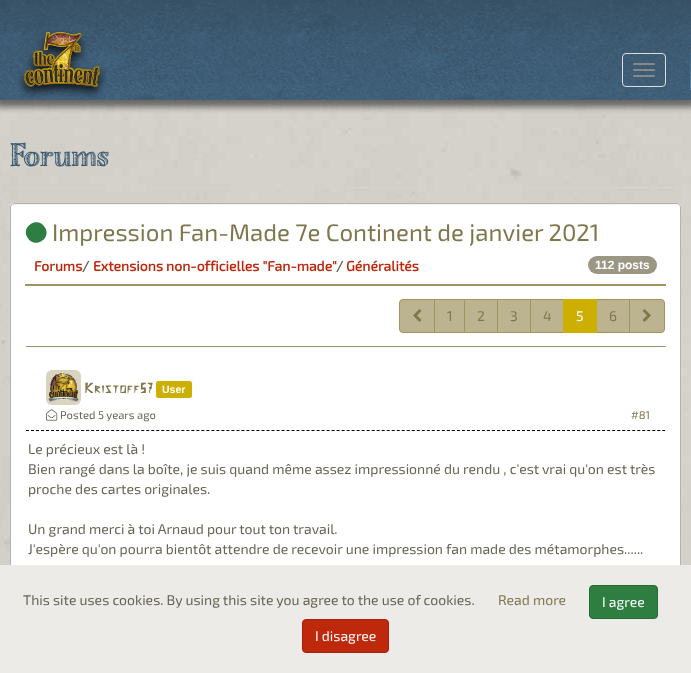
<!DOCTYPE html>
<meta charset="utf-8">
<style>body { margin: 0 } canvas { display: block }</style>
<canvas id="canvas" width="691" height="673"></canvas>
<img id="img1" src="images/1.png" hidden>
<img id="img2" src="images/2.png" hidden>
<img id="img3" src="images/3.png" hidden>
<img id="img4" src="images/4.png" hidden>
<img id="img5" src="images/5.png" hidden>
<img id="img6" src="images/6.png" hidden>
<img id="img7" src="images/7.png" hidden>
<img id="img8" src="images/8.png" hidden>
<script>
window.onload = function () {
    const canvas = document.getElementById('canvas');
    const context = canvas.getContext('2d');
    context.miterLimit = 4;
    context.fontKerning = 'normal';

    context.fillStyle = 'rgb(255, 255, 255)';
    context.fillRect(0, 0, 691, 673);
    context.drawImage(document.getElementById('img1'), 0, 100, 691, 465);
    context.fillStyle = 'rgba(0, 0, 0, 0.5)';
    context.filter = 'blur(3px)';
    context.beginPath();
    context.rect(-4, -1, 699, 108);
    context.fill();
    context.filter = 'none';
    context.drawImage(document.getElementById('img2'), 0, 0, 691, 100);
    context.drawImage(document.getElementById('img3'), 690, 51, 1, 39);
    context.drawImage(document.getElementById('img4'), 18, 31, 88, 67);
    context.beginPath();
    context.roundRect(622.5, 53.5, 43, 33, 3.5);
    context.strokeStyle = 'rgb(221, 221, 221)';
    context.stroke();
    context.fillStyle = 'rgb(136, 136, 136)';
    context.beginPath();
    context.roundRect(633, 63, 22, 2, 1);
    context.fill();
    context.beginPath();
    context.roundRect(633, 69, 22, 2, 1);
    context.fill();
    context.beginPath();
    context.roundRect(633, 75, 22, 2, 1);
    context.fill();
    context.fillStyle = 'rgb(213, 211, 203)';
    context.fillRect(10, 187, 671, 1);
    context.fillStyle = 'rgb(255, 255, 255)';
    context.beginPath();
    context.roundRect(10, 203, 671, 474, 4);
    context.fill();
    context.fillStyle = 'rgb(242, 242, 242)';
    context.beginPath();
    context.moveTo(14, 205);
    context.lineTo(677, 205);
    context.bezierCurveTo(679, 205, 680, 206, 680, 208);
    context.lineTo(680, 207);
    context.bezierCurveTo(680, 205, 679, 204, 677, 204);
    context.lineTo(14, 204);
    context.bezierCurveTo(12, 204, 11, 205, 11, 207);
    context.lineTo(11, 208);
    context.bezierCurveTo(11, 206, 12, 205, 14, 205);
    context.closePath();
    context.fill();
    context.beginPath();
    context.roundRect(10.5, 203.5, 670, 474, 3.5);
    context.strokeStyle = 'rgb(179, 179, 179)';
    context.stroke();
    context.fillStyle = 'rgb(45, 126, 64)';
    context.beginPath();
    context.moveTo(45, 227.5);
    context.bezierCurveTo(52, 239, 34, 249.5, 27.5, 237.5);
    context.bezierCurveTo(20.5, 226, 38.5, 215.5, 45, 227.5);
    context.closePath();
    context.fill();
    context.fillStyle = 'rgb(159, 147, 97)';
    context.fillRect(25, 284, 641, 2);
    context.fillStyle = 'rgb(156, 151, 133)';
    context.beginPath();
    context.roundRect(588, 256, 69, 18, 9);
    context.fill();
    context.fillStyle = 'rgb(188, 179, 144)';
    context.beginPath();
    context.roundRect(399.5, 299.5, 35, 33, [3.5, 0, 0, 3.5]);
    context.fill();
    context.strokeStyle = 'rgb(159, 147, 97)';
    context.stroke();
    context.drawImage(document.getElementById('img5'), 413, 309, 9, 13);
    context.beginPath();
    context.rect(434.5, 299.5, 30, 33);
    context.fill();
    context.stroke();
    context.beginPath();
    context.rect(464.5, 299.5, 33, 33);
    context.fill();
    context.stroke();
    context.beginPath();
    context.rect(497.5, 299.5, 33, 33);
    context.fill();
    context.stroke();
    context.beginPath();
    context.rect(530.5, 299.5, 33, 33);
    context.fill();
    context.stroke();
    context.beginPath();
    context.rect(596.5, 299.5, 33, 33);
    context.fill();
    context.stroke();
    context.fillStyle = 'rgb(205, 175, 2)';
    context.fillRect(563, 299, 34, 34);
    context.fillStyle = 'rgb(188, 179, 144)';
    context.beginPath();
    context.roundRect(629.5, 299.5, 35, 33, [0, 3.5, 3.5, 0]);
    context.fill();
    context.stroke();
    context.drawImage(document.getElementById('img6'), 642, 309, 9, 13);
    context.fillStyle = 'rgb(159, 147, 97)';
    context.fillRect(26, 346, 640, 1);
    context.drawImage(document.getElementById('img7'), 46, 370, 35, 35);
    context.fillStyle = 'rgb(205, 175, 2)';
    context.beginPath();
    context.roundRect(156, 381, 36, 17, 2.5);
    context.fill();
    context.beginPath();
    context.moveTo(26, 430.5);
    context.lineTo(665, 430.5);
    context.strokeStyle = 'rgb(0, 0, 0)';
    context.setLineDash([3, 2.01]);
    context.stroke();
    context.drawImage(document.getElementById('img8'), 46, 409, 12, 12);
    context.fillStyle = 'rgb(236, 235, 232)';
    context.fillRect(0, 565, 691, 108);
    context.fillStyle = 'rgb(45, 126, 64)';
    context.beginPath();
    context.roundRect(589.5, 585.5, 68, 33, 3.5);
    context.fill();
    context.strokeStyle = 'rgb(38, 107, 54)';
    context.setLineDash([]);
    context.stroke();
    context.fillStyle = 'rgb(190, 40, 13)';
    context.beginPath();
    context.roundRect(302.5, 619.5, 86, 33, 3.5);
    context.fill();
    context.strokeStyle = 'rgb(166, 35, 11)';
    context.stroke();
    context.font = '34.5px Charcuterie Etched';
    context.fillStyle = 'rgb(60, 91, 114)';
    context.fillText('Forums', 10, 166);
    context.font = '24px "Exo 2"';
    context.fillStyle = 'rgb(128, 118, 77)';
    context.fillText('Impression Fan-Made 7e Continent de janvier 2021', 52, 241);
    context.font = 'bold 14px "Exo 2"';
    context.fillStyle = 'rgb(190, 40, 13)';
    context.fillText('Forums', 34, 271);
    context.fillStyle = 'rgb(103, 99, 84)';
    context.fillText('/', 82, 271);
    context.fillStyle = 'rgb(190, 40, 13)';
    context.fillText('Extensions non-officielles "Fan-made"', 93, 271);
    context.fillStyle = 'rgb(103, 99, 84)';
    context.fillText('/', 336, 271);
    context.fillStyle = 'rgb(190, 40, 13)';
    context.fillText('Généralités', 346, 271);
    context.font = 'bold 12px Liberation Sans';
    context.fillStyle = 'rgb(255, 255, 255)';
    context.fillText('112 posts', 595, 269);
    context.font = '14px "Exo 2"';
    context.fillStyle = 'rgb(128, 118, 77)';
    context.fillText('1', 447, 321);
    context.fillText('2', 477, 321);
    context.fillText('3', 510, 321);
    context.fillText('4', 543, 321);
    context.fillStyle = 'rgb(255, 255, 255)';
    context.fillText('5', 576, 321);
    context.fillStyle = 'rgb(128, 118, 77)';
    context.fillText('6', 609, 321);
    context.font = '14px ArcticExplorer';
    context.fillText('Kristoff57', 84, 393);
    context.font = 'bold 10.5px Liberation Sans';
    context.fillStyle = 'rgb(255, 255, 255)';
    context.fillText('User', 162, 393);
    context.font = '11.25px "Exo 2"';
    context.fillStyle = 'rgb(103, 99, 84)';
    context.fillText('Posted 5 years ago', 60, 419);
    context.fillStyle = 'rgb(128, 118, 77)';
    context.fillText('#81', 631, 419);
    context.font = '14px "Exo 2"';
    context.fillStyle = 'rgb(103, 99, 84)';
    context.fillText('Le précieux est là !', 28, 454);
    context.fillText('Bien rangé dans la boîte, je suis quand même assez impressionné du rendu , c\'est vrai qu\'on est très', 28, 474);
    context.fillText('proche des cartes originales.', 28, 494);
    context.fillText('Un grand merci à toi Arnaud pour tout ton travail.', 28, 534);
    context.fillText('J\'espère qu\'on pourra bientôt attendre de recevoir une impression fan made des métamorphes......', 28, 554);
    context.fillText('This site uses cookies. By using this site you agree to the use of cookies.', 23, 605);
    context.fillStyle = 'rgb(128, 118, 77)';
    context.fillText('Read more', 498, 605);
    context.fillStyle = 'rgb(255, 255, 255)';
    context.fillText('I agree', 602, 607);
    context.fillText('I disagree', 315, 641);
};
</script>
